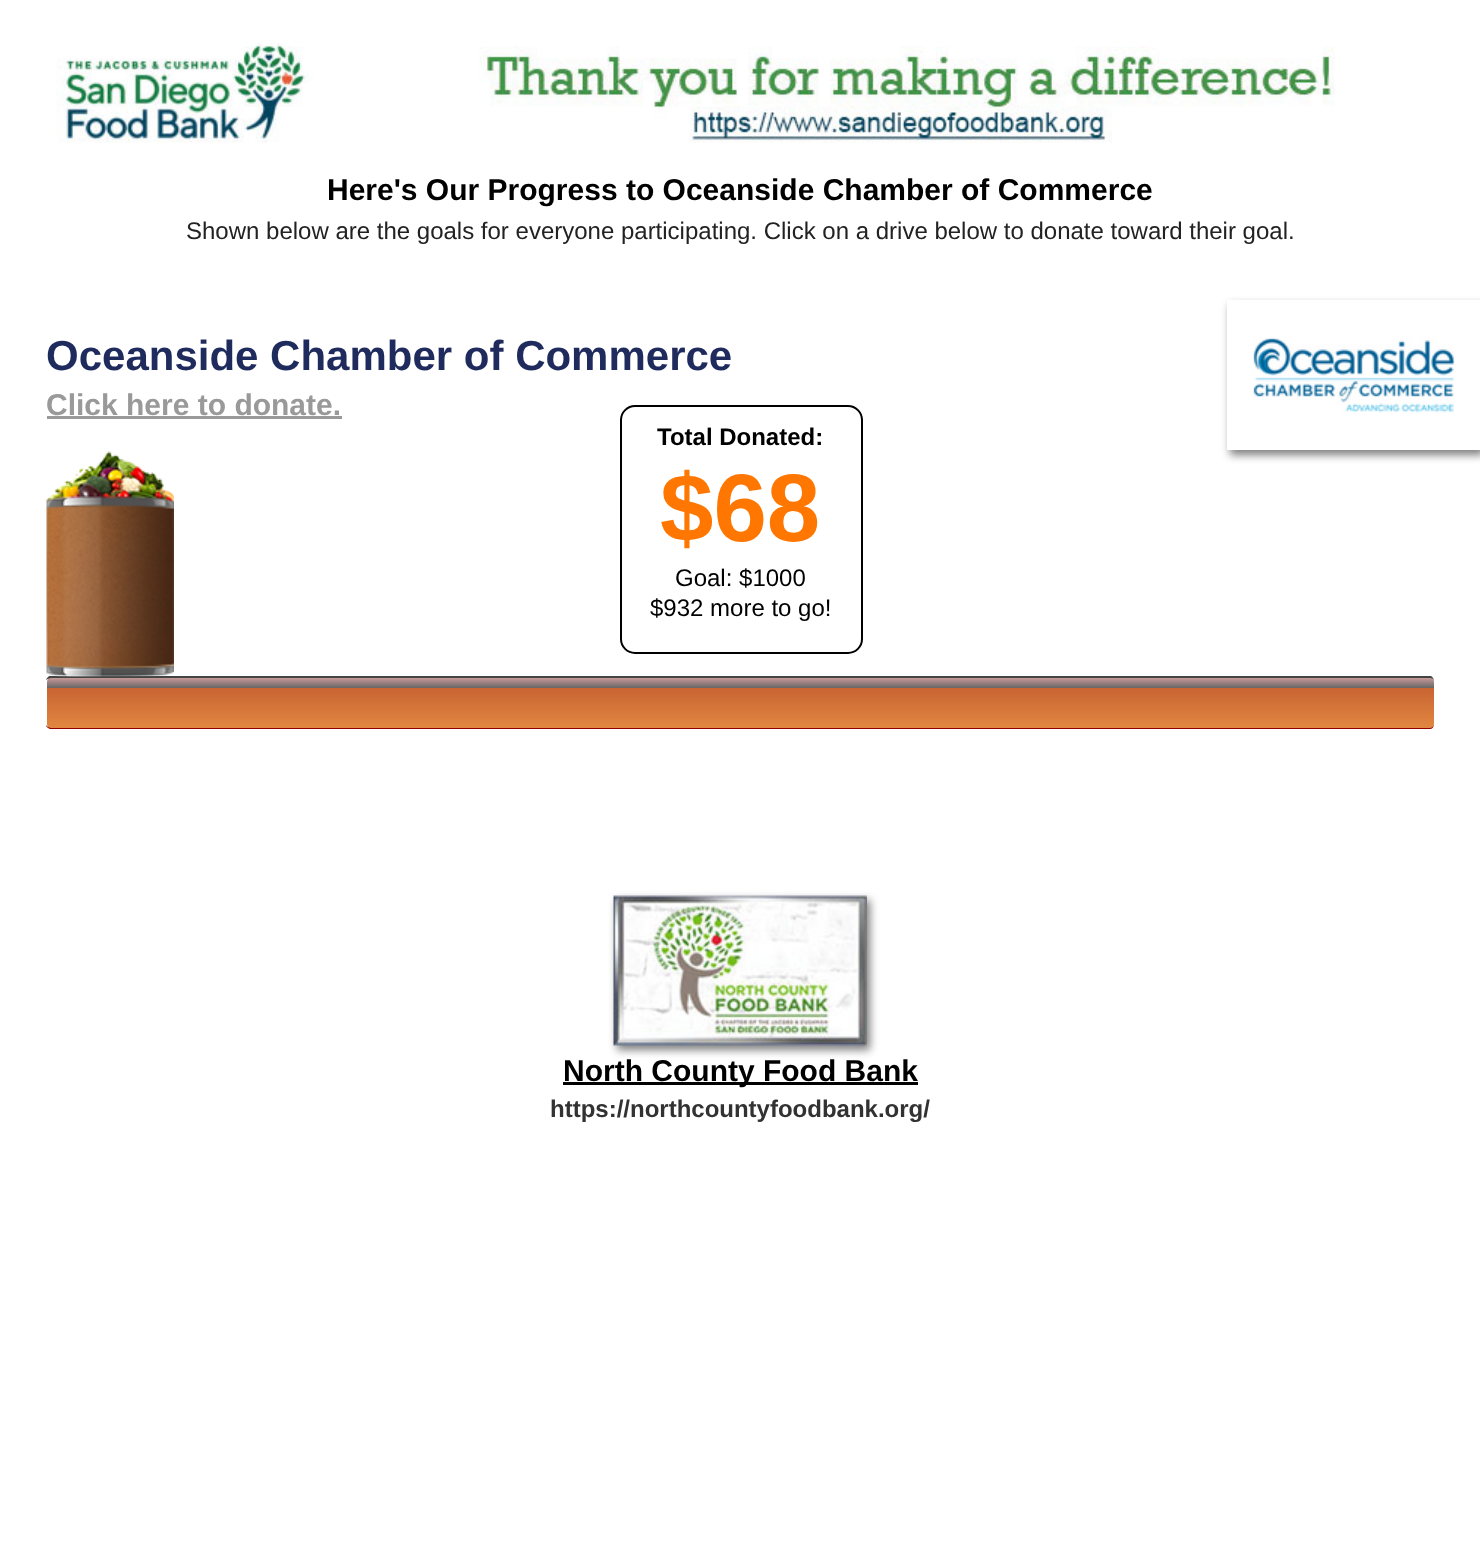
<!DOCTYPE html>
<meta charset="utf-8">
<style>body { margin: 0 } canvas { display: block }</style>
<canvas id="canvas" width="1480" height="1541"></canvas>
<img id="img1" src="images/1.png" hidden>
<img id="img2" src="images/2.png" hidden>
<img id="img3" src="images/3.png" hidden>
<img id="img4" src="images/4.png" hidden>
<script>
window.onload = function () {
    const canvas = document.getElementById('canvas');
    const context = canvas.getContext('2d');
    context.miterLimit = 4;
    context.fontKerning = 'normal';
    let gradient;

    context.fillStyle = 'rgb(255, 255, 255)';
    context.fillRect(0, 0, 1480, 1541);
    context.drawImage(document.getElementById('img1'), 56, 43, 1279, 100);
    context.fillStyle = 'rgb(153, 153, 153)';
    context.fillRect(47, 416, 295, 3);
    context.save();
    context.beginPath();
    context.roundRect(47, 677, 1387, 52, 5);
    context.clip();
    gradient = context.createLinearGradient(740, 678, 740, 728);
    gradient.addColorStop(0, 'rgb(200, 153, 153)');
    gradient.addColorStop(0.2, 'rgb(102, 102, 102)');
    gradient.addColorStop(0.2, 'rgb(200, 100, 50)');
    gradient.addColorStop(1, 'rgb(225, 135, 65)');
    context.fillStyle = gradient;
    context.fillRect(47, 678, 1387, 50);
    context.restore();
    context.fillStyle = 'rgb(68, 68, 68)';
    context.beginPath();
    context.moveTo(1431, 676);
    context.lineTo(49, 676);
    context.bezierCurveTo(48, 677, 46, 679, 46, 680);
    context.bezierCurveTo(47, 679, 50, 678, 51, 678);
    context.lineTo(1430, 678);
    context.bezierCurveTo(1432, 678, 1434, 679, 1434, 681);
    context.bezierCurveTo(1434, 679, 1433, 677, 1431, 676);
    context.closePath();
    context.fill();
    context.drawImage(document.getElementById('img2'), 46, 451, 128, 226);
    context.beginPath();
    context.roundRect(621, 406, 241, 247, 14);
    context.strokeStyle = 'rgb(0, 0, 0)';
    context.lineWidth = 2;
    context.stroke();
    context.fillStyle = 'rgb(144, 0, 0)';
    context.beginPath();
    context.moveTo(1430, 729);
    context.lineTo(51, 729);
    context.bezierCurveTo(49, 729, 46, 727, 46, 725);
    context.bezierCurveTo(47, 727, 50, 728, 51, 728);
    context.lineTo(1430, 728);
    context.bezierCurveTo(1432, 728, 1434, 726, 1434, 724);
    context.bezierCurveTo(1434, 727, 1432, 729, 1430, 729);
    context.closePath();
    context.fill();
    context.save();
    context.beginPath();
    context.moveTo(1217, 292);
    context.lineTo(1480, 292);
    context.lineTo(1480, 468);
    context.lineTo(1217, 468);
    context.closePath();
    context.moveTo(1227, 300);
    context.lineTo(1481, 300);
    context.lineTo(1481, 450);
    context.lineTo(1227, 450);
    context.closePath();
    context.clip('evenodd');
    context.fillStyle = 'rgba(0, 0, 0, 0.5)';
    context.filter = 'blur(4px)';
    context.beginPath();
    context.rect(1230, 305, 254, 150);
    context.fill();
    context.filter = 'none';
    context.restore();
    context.drawImage(document.getElementById('img3'), 1253, 337, 202, 76);
    context.fillStyle = 'rgba(0, 0, 0, 0.5)';
    context.filter = 'blur(4px)';
    context.beginPath();
    context.rect(617, 900, 253, 150);
    context.fill();
    context.filter = 'none';
    context.drawImage(document.getElementById('img4'), 613, 895, 254, 151);
    context.fillStyle = 'rgb(0, 0, 0)';
    context.fillRect(563, 1082, 355, 3);
    context.font = 'bold 30px Liberation Sans';
    context.fillText('Here\'s Our Progress to Oceanside Chamber of Commerce', 327, 200);
    context.font = '24px Liberation Sans';
    context.fillStyle = 'rgb(34, 34, 34)';
    context.fillText('Shown below are the goals for everyone participating. Click on a drive below to donate toward their goal.', 186, 239);
    context.font = 'bold 42px Liberation Sans';
    context.fillStyle = 'rgb(31, 43, 93)';
    context.fillText('Oceanside Chamber of Commerce', 46, 370);
    context.font = 'bold 30px Liberation Sans';
    context.fillStyle = 'rgb(153, 153, 153)';
    context.fillText('Click here to donate.', 46, 415);
    context.font = 'bold 24px Liberation Sans';
    context.fillStyle = 'rgb(0, 0, 0)';
    context.fillText('Total Donated:', 657, 445);
    context.font = 'bold 96px Liberation Sans';
    context.fillStyle = 'rgb(255, 119, 0)';
    context.fillText('$68', 660, 541);
    context.font = '24px Liberation Sans';
    context.fillStyle = 'rgb(0, 0, 0)';
    context.fillText('Goal: $1000', 675, 586);
    context.fillText('$932 more to go!', 650, 616);
    context.font = 'bold 30px Liberation Sans';
    context.fillText('North County Food Bank', 563, 1081);
    context.font = 'bold 24px Liberation Sans';
    context.fillStyle = 'rgb(50, 50, 50)';
    context.fillText('https://northcountyfoodbank.org/', 550, 1117);
};
</script>
